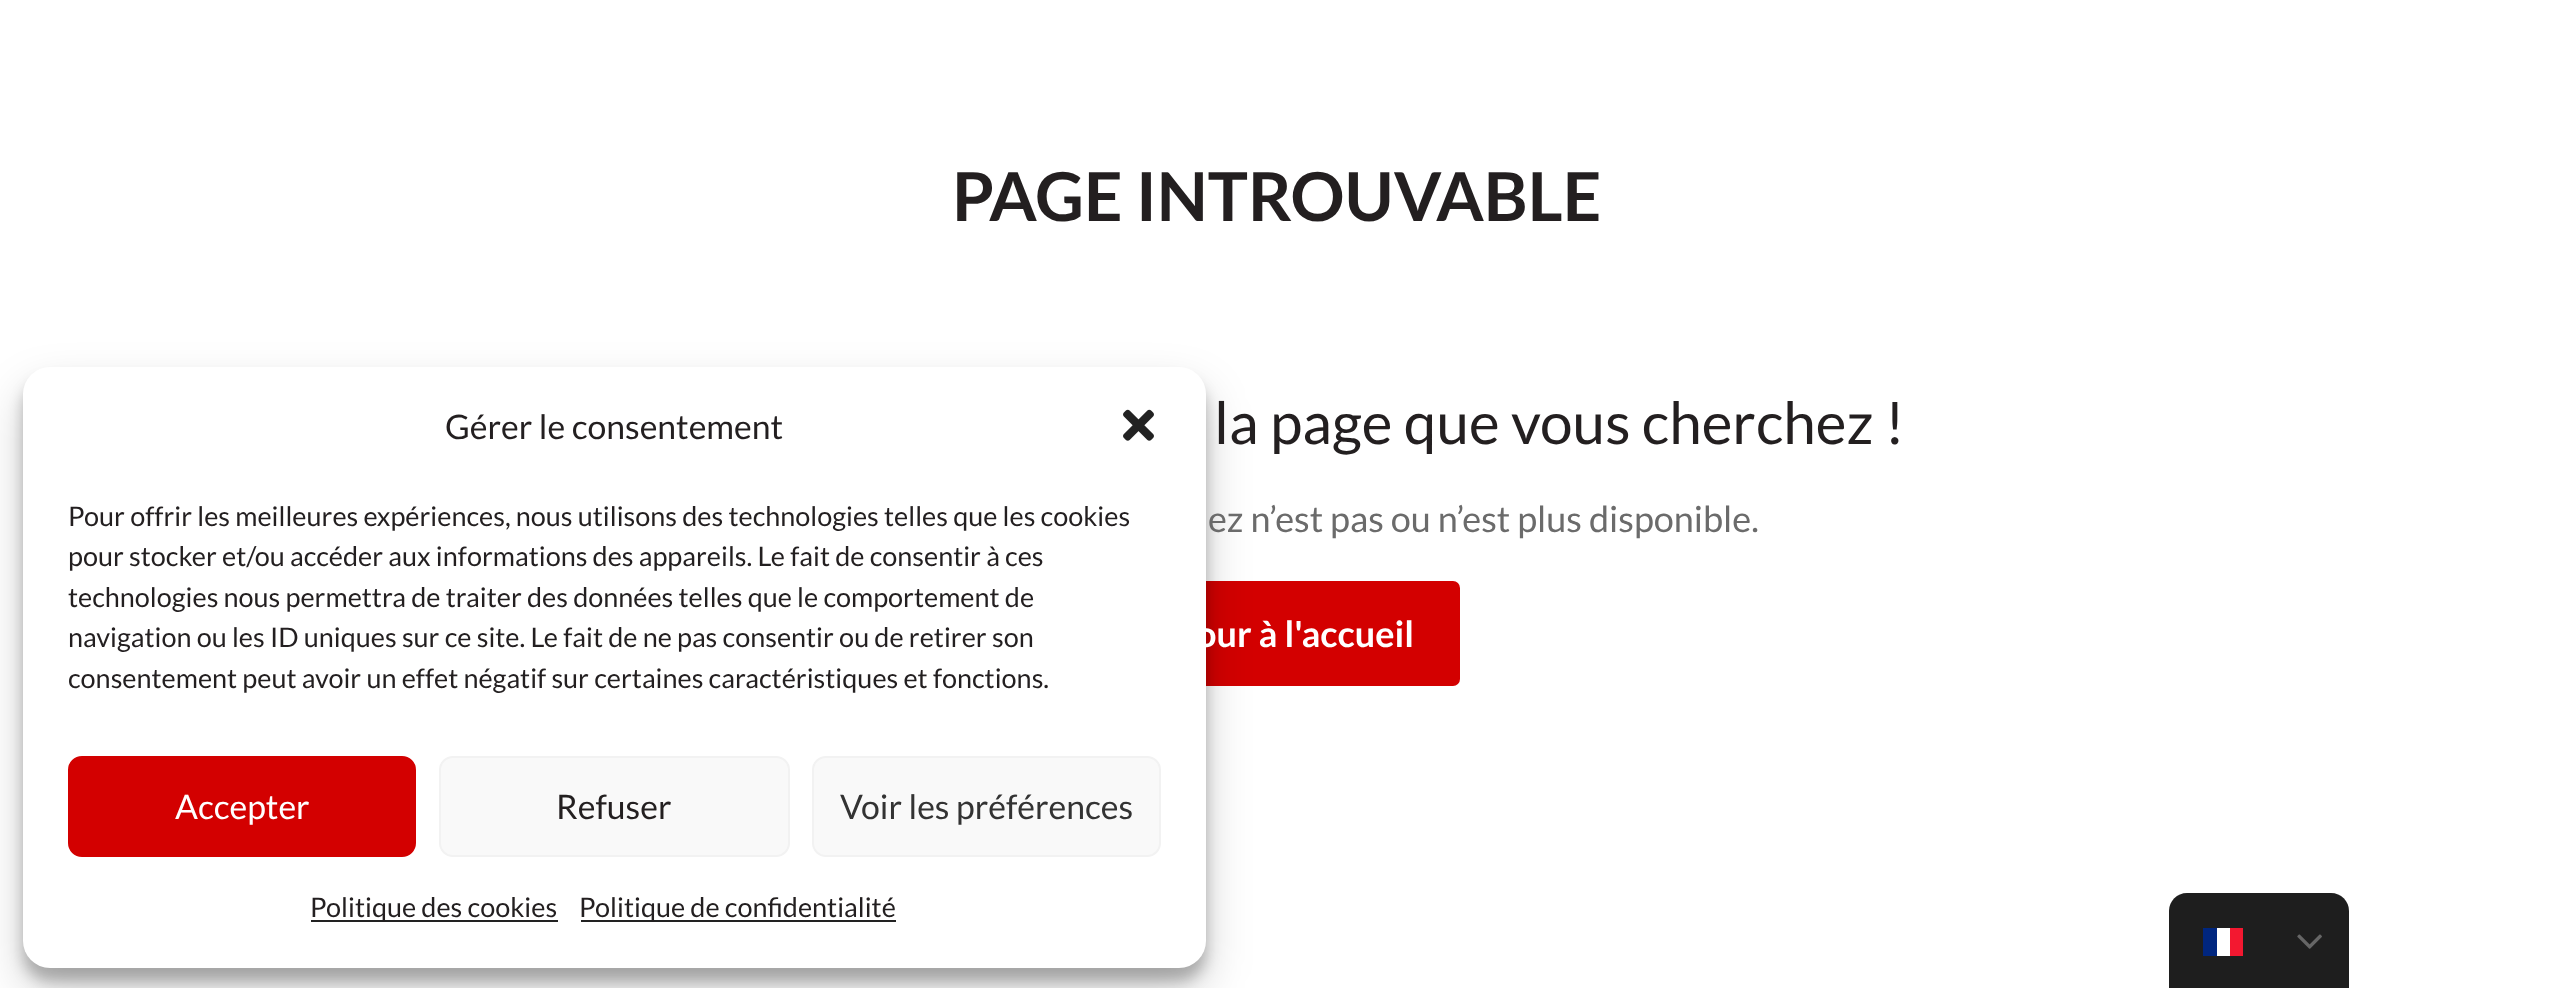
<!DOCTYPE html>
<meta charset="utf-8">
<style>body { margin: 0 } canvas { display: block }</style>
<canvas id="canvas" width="2553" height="988"></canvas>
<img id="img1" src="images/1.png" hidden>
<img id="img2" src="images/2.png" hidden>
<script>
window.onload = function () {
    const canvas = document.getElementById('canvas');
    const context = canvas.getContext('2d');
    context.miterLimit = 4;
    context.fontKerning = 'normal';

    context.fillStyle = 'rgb(255, 255, 255)';
    context.fillRect(0, 0, 2553, 988);
    context.fillStyle = 'rgb(211, 0, 0)';
    context.beginPath();
    context.roundRect(1094, 581, 366, 105, 7);
    context.fill();
    context.fillStyle = 'rgba(0, 0, 0, 0.23)';
    context.filter = 'blur(7px)';
    context.beginPath();
    context.roundRect(23, 380, 1183, 601, 27);
    context.fill();
    context.filter = 'none';
    context.fillStyle = 'rgba(0, 0, 0, 0.19)';
    context.filter = 'blur(22.5px)';
    context.beginPath();
    context.roundRect(23, 389, 1183, 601, 27);
    context.fill();
    context.filter = 'none';
    context.fillStyle = 'rgb(255, 255, 255)';
    context.beginPath();
    context.roundRect(23, 367, 1183, 601, 27);
    context.fill();
    context.drawImage(document.getElementById('img1'), 1123, 409, 31, 32);
    context.fillStyle = 'rgb(211, 0, 0)';
    context.beginPath();
    context.roundRect(69, 757, 346, 99, 13);
    context.fill();
    context.strokeStyle = 'rgb(211, 0, 0)';
    context.lineWidth = 2;
    context.stroke();
    context.fillStyle = 'rgb(249, 249, 249)';
    context.beginPath();
    context.roundRect(440, 757, 349, 99, 13);
    context.fill();
    context.strokeStyle = 'rgb(242, 242, 242)';
    context.stroke();
    context.beginPath();
    context.roundRect(813, 757, 347, 99, 13);
    context.fill();
    context.stroke();
    context.fillStyle = 'rgb(34, 34, 34)';
    context.fillRect(311, 920, 247, 2);
    context.fillRect(581, 920, 315, 2);
    context.fillStyle = 'rgb(30, 30, 30)';
    context.beginPath();
    context.moveTo(2187, 893);
    context.lineTo(2331, 893);
    context.bezierCurveTo(2341, 893, 2349, 901, 2349, 911);
    context.lineTo(2349, 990);
    context.lineTo(2169, 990);
    context.lineTo(2169, 911);
    context.bezierCurveTo(2169, 901, 2177, 893, 2187, 893);
    context.closePath();
    context.fill();
    context.fillStyle = 'rgb(0, 38, 127)';
    context.fillRect(2203, 928, 14, 28);
    context.fillStyle = 'rgb(255, 255, 255)';
    context.fillRect(2217, 928, 13, 28);
    context.fillStyle = 'rgb(243, 24, 48)';
    context.fillRect(2230, 928, 13, 28);
    context.drawImage(document.getElementById('img2'), 2297, 934, 25, 15);
    context.font = '33.75px Lato';
    context.fillStyle = 'rgb(35, 31, 32)';
    context.fillText('Gérer le consentement', 445, 439);
    context.font = '27px Lato';
    context.fillText('Pour offrir les meilleures expériences, nous utilisons des technologies telles que les cookies', 68, 526);
    context.fillText('pour stocker et/ou accéder aux informations des appareils. Le fait de consentir à ces', 68, 566);
    context.fillText('technologies nous permettra de traiter des données telles que le comportement de', 68, 607);
    context.fillText('navigation ou les ID uniques sur ce site. Le fait de ne pas consentir ou de retirer son', 68, 647);
    context.fillText('consentement peut avoir un effet négatif sur certaines caractéristiques et fonctions.', 68, 688);
    context.font = '33.75px Lato';
    context.fillStyle = 'rgb(255, 255, 255)';
    context.fillText('Accepter', 175, 819);
    context.fillStyle = 'rgb(35, 31, 32)';
    context.fillText('Refuser', 556, 819);
    context.fillStyle = 'rgb(51, 51, 51)';
    context.fillText('Voir les préférences', 840, 819);
    context.font = '27px Lato';
    context.fillStyle = 'rgb(35, 31, 32)';
    context.fillText('Politique des cookies', 310, 917);
    context.fillText('Politique de confidentialité', 579, 917);
    context.font = 'bold 67.5px Lato';
    context.fillText('PAGE INTROUVABLE', 952, 221);
    context.font = '58.5px Lato';
    context.fillText('la page que vous cherchez !', 1214, 444);
    context.font = '36px Lato';
    context.fillStyle = 'rgb(107, 107, 107)';
    context.fillText('ez n’est pas ou n’est plus disponible.', 1208, 532);
    context.font = 'bold 36px Lato';
    context.fillStyle = 'rgb(255, 255, 255)';
    context.fillText('our à l\'accueil', 1196, 647);
};
</script>
